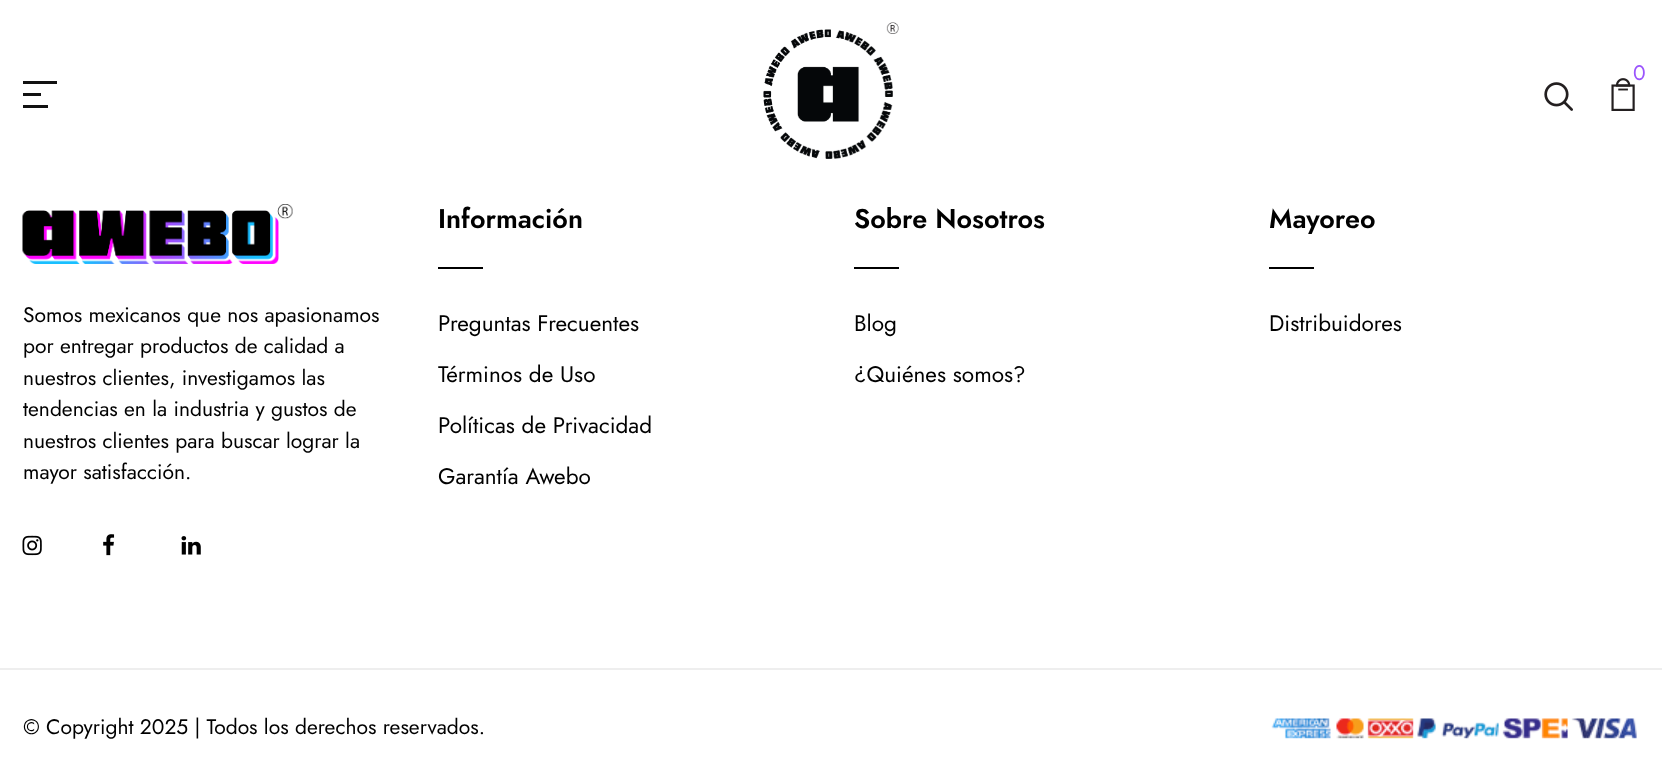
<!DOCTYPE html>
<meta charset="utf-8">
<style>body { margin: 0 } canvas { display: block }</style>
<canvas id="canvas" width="1662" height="784"></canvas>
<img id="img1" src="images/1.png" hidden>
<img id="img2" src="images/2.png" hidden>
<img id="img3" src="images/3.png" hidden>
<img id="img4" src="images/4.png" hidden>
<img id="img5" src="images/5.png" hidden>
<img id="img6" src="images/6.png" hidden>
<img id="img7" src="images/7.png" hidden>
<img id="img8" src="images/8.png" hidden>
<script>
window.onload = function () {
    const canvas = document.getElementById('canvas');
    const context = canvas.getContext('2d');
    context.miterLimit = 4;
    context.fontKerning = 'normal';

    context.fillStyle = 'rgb(255, 255, 255)';
    context.fillRect(0, 0, 1662, 784);
    context.drawImage(document.getElementById('img1'), 763, 22, 136, 137);
    context.drawImage(document.getElementById('img2'), 1611, 78, 24, 33);
    context.drawImage(document.getElementById('img3'), 1544, 82, 29, 29);
    context.fillStyle = 'rgb(17, 17, 17)';
    context.fillRect(23, 81, 34, 3);
    context.fillRect(23, 93, 18, 3);
    context.fillRect(23, 105, 25, 3);
    context.fillStyle = 'rgb(0, 0, 0)';
    context.fillRect(438, 267, 45, 2);
    context.fillRect(854, 267, 45, 2);
    context.fillRect(1269, 267, 45, 2);
    context.drawImage(document.getElementById('img4'), 22, 204, 271, 60);
    context.drawImage(document.getElementById('img5'), 22, 535, 20, 21);
    context.drawImage(document.getElementById('img6'), 103, 534, 12, 22);
    context.drawImage(document.getElementById('img7'), 181, 536, 20, 19);
    context.fillStyle = 'rgb(238, 238, 238)';
    context.fillRect(0, 668, 1662, 2);
    context.drawImage(document.getElementById('img8'), 1271, 718, 366, 21);
    context.font = '21px Jost';
    context.fillStyle = 'rgb(155, 85, 253)';
    context.fillText('0', 1633, 80);
    context.font = '600 27px Jost';
    context.fillStyle = 'rgb(0, 0, 0)';
    context.fillText('Información', 438, 228);
    context.font = '22.5px Jost';
    context.fillText('Preguntas Frecuentes', 438, 331);
    context.fillText('Términos de Uso', 438, 382);
    context.fillText('Políticas de Privacidad', 438, 433);
    context.fillText('Garantía Awebo', 438, 484);
    context.font = '600 27px Jost';
    context.fillText('Sobre Nosotros', 854, 228);
    context.font = '22.5px Jost';
    context.fillText('Blog', 854, 331);
    context.fillText('¿Quiénes somos?', 854, 382);
    context.font = '600 27px Jost';
    context.fillText('Mayoreo', 1269, 228);
    context.font = '22.5px Jost';
    context.fillText('Distribuidores', 1269, 331);
    context.font = '21px Jost';
    context.fillText('Somos mexicanos que nos apasionamos', 23, 322);
    context.fillText('por entregar productos de calidad a', 23, 353);
    context.fillText('nuestros clientes, investigamos las', 23, 385);
    context.fillText('tendencias en la industria y gustos de', 23, 416);
    context.fillText('nuestros clientes para buscar lograr la', 23, 448);
    context.fillText('mayor satisfacción.', 23, 479);
    context.fillText('© Copyright 2025 | Todos los derechos reservados.', 23, 734);
};
</script>
